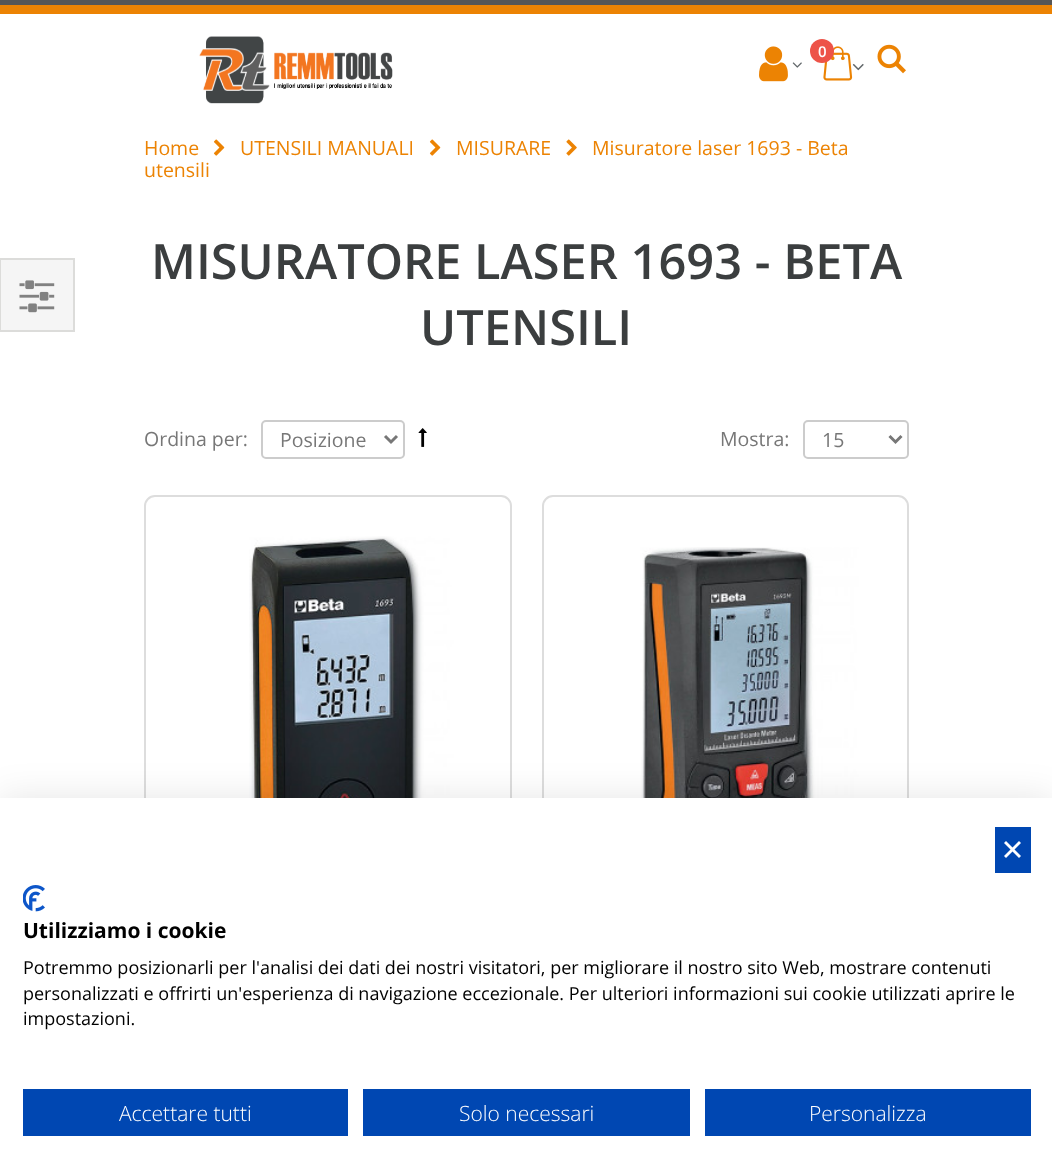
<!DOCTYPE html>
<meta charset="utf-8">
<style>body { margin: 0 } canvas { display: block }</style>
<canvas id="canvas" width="1052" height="1176"></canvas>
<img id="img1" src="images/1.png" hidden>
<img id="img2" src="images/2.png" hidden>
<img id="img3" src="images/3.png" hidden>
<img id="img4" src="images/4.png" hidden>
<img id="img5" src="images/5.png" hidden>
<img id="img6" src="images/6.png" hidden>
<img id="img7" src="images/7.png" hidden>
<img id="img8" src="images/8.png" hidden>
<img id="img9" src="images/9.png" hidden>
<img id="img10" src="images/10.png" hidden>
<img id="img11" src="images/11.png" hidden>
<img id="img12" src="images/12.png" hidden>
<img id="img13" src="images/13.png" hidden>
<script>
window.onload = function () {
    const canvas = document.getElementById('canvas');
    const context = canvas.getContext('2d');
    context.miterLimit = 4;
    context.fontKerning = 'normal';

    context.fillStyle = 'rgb(255, 255, 255)';
    context.fillRect(0, 0, 1052, 1176);
    context.fillStyle = 'rgb(86, 86, 86)';
    context.fillRect(0, 0, 1052, 5);
    context.fillStyle = 'rgb(236, 131, 3)';
    context.fillRect(0, 5, 1052, 9);
    context.drawImage(document.getElementById('img1'), 199, 36, 194, 68);
    context.drawImage(document.getElementById('img2'), 759, 46, 29, 36);
    context.drawImage(document.getElementById('img3'), 792, 62, 10, 6);
    context.drawImage(document.getElementById('img4'), 823, 46, 30, 35);
    context.fillStyle = 'rgb(237, 83, 72)';
    context.beginPath();
    context.arc(822, 51, 12, 0, 2 * Math.PI);
    context.fill();
    context.drawImage(document.getElementById('img5'), 852, 63, 12, 8);
    context.drawImage(document.getElementById('img6'), 877, 44, 29, 30);
    context.drawImage(document.getElementById('img7'), 213, 139, 12, 17);
    context.drawImage(document.getElementById('img7'), 429, 139, 12, 17);
    context.drawImage(document.getElementById('img8'), 566, 139, 11, 17);
    context.fillStyle = 'rgb(245, 245, 245)';
    context.beginPath();
    context.rect(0, 259, 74, 72);
    context.fill();
    context.strokeStyle = 'rgb(220, 220, 218)';
    context.lineWidth = 2;
    context.stroke();
    context.drawImage(document.getElementById('img9'), 19, 280, 36, 33);
    context.beginPath();
    context.roundRect(262, 421, 142, 37, 4);
    context.strokeStyle = 'rgb(204, 204, 204)';
    context.stroke();
    context.beginPath();
    context.moveTo(385, 436);
    context.lineTo(391, 442);
    context.lineTo(397, 436);
    context.strokeStyle = 'rgb(119, 119, 119)';
    context.lineWidth = 3;
    context.stroke();
    context.drawImage(document.getElementById('img10'), 418, 428, 9, 19);
    context.beginPath();
    context.roundRect(804, 421, 104, 37, 4);
    context.strokeStyle = 'rgb(204, 204, 204)';
    context.lineWidth = 2;
    context.stroke();
    context.beginPath();
    context.moveTo(889.5, 436);
    context.lineTo(895.5, 442);
    context.lineTo(901.5, 436);
    context.strokeStyle = 'rgb(119, 119, 119)';
    context.lineWidth = 3;
    context.stroke();
    context.beginPath();
    context.roundRect(145, 496, 366, 484, 10);
    context.strokeStyle = 'rgb(221, 221, 221)';
    context.lineWidth = 2;
    context.stroke();
    context.drawImage(document.getElementById('img11'), 249, 536, 257, 262);
    context.beginPath();
    context.roundRect(543, 496, 365, 484, 10);
    context.stroke();
    context.drawImage(document.getElementById('img12'), 640, 547, 263, 251);
    context.fillStyle = 'rgba(0, 0, 0, 0.1)';
    context.filter = 'blur(18px)';
    context.beginPath();
    context.rect(0, 798, 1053, 378);
    context.fill();
    context.filter = 'none';
    context.fillStyle = 'rgb(255, 255, 255)';
    context.fillRect(0, 798, 1052, 378);
    context.fillStyle = 'rgb(0, 71, 178)';
    context.fillRect(995, 827, 36, 46);
    context.fillStyle = 'rgb(255, 255, 255)';
    context.beginPath();
    context.moveTo(1019, 841);
    context.lineTo(1021, 843);
    context.lineTo(1006, 858);
    context.lineTo(1004, 856);
    context.closePath();
    context.fill();
    context.beginPath();
    context.moveTo(1004, 843);
    context.lineTo(1006, 841);
    context.lineTo(1021, 856);
    context.lineTo(1019, 858);
    context.closePath();
    context.fill();
    context.drawImage(document.getElementById('img13'), 23, 885, 22, 27);
    context.fillStyle = 'rgb(0, 71, 178)';
    context.fillRect(23, 1089, 325, 47);
    context.fillRect(363, 1089, 327, 47);
    context.fillRect(705, 1089, 326, 47);
    context.font = '600 15px Open Sans';
    context.fillStyle = 'rgb(255, 255, 255)';
    context.fillText('0', 818, 57);
    context.font = '19.5px Open Sans';
    context.fillStyle = 'rgb(236, 131, 3)';
    context.fillText('Home', 144, 155);
    context.fillText('UTENSILI MANUALI', 240, 155);
    context.fillText('MISURARE', 456, 155);
    context.fillText('Misuratore laser 1693 - Beta', 592, 155);
    context.fillText('utensili', 144, 177);
    context.font = '600 48.75px Open Sans';
    context.fillStyle = 'rgb(59, 62, 63)';
    context.fillText('MISURATORE LASER 1693 - BETA', 151, 279);
    context.fillText('UTENSILI', 420, 345);
    context.font = '19.5px Open Sans';
    context.fillStyle = 'rgb(119, 119, 119)';
    context.fillText('Ordina per:', 144, 446);
    context.fillText('Posizione', 280, 447);
    context.fillText('Mostra:', 720, 446);
    context.fillText('15', 822, 447);
    context.font = 'bold 21px Open Sans';
    context.fillStyle = 'rgb(0, 0, 0)';
    context.fillText('Utilizziamo i cookie', 23, 938);
    context.font = '18px Open Sans';
    context.fillText('Potremmo posizionarli per l\'analisi dei dati dei nostri visitatori, per migliorare il nostro sito Web, mostrare contenuti', 23, 974);
    context.fillText('personalizzati e offrirti un\'esperienza di navigazione eccezionale. Per ulteriori informazioni sui cookie utilizzati aprire le', 23, 1000);
    context.fillText('impostazioni.', 23, 1025);
    context.font = '300 21px Open Sans';
    context.fillStyle = 'rgb(255, 255, 255)';
    context.fillText('Accettare tutti', 119, 1121);
    context.fillText('Solo necessari', 459, 1121);
    context.fillText('Personalizza', 809, 1121);
};
</script>
